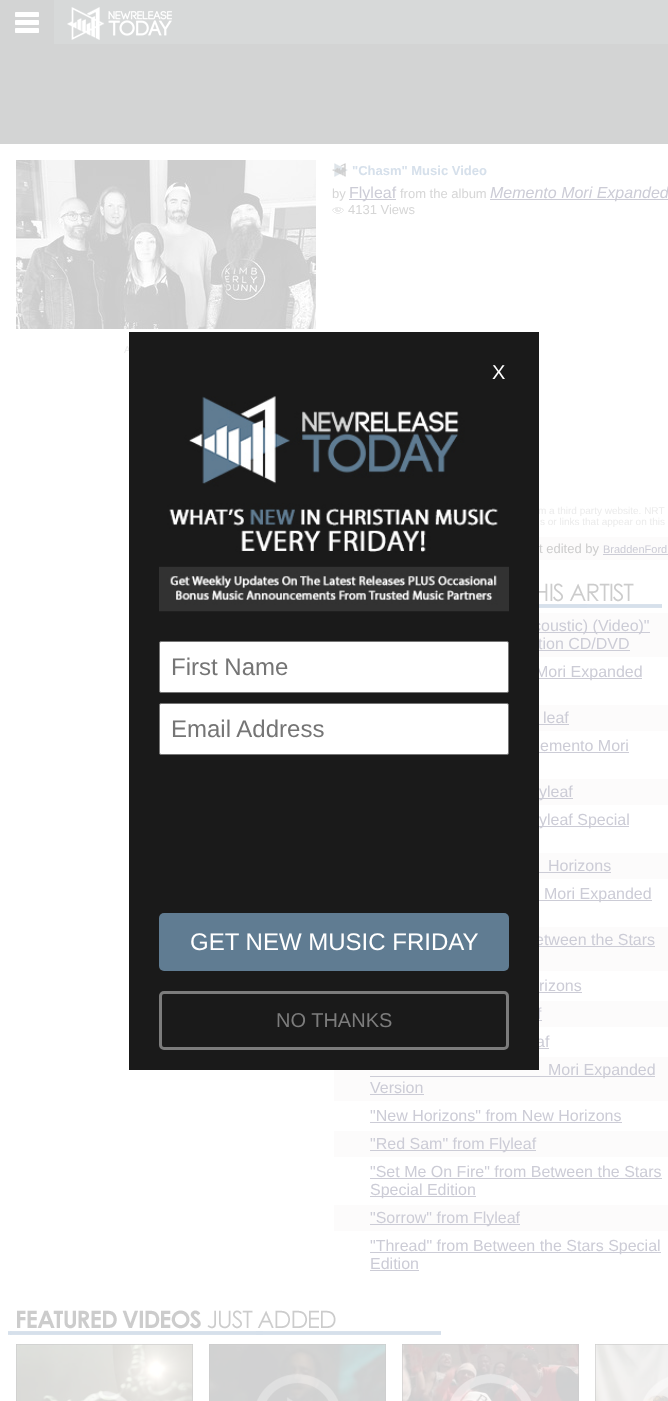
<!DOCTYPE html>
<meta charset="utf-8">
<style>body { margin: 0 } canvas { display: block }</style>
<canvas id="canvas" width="668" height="1401"></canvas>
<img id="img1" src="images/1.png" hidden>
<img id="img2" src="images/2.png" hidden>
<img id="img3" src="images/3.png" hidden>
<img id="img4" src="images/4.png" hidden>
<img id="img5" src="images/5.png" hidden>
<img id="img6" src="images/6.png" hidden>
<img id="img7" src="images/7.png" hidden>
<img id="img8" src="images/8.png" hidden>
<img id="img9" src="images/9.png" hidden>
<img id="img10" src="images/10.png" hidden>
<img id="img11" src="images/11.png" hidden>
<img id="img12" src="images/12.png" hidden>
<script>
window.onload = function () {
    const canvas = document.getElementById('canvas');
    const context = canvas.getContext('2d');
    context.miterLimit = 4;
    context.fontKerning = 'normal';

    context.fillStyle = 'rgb(211, 212, 212)';
    context.fillRect(0, 0, 668, 1401);
    context.fillStyle = 'rgb(215, 217, 217)';
    context.fillRect(54, 0, 614, 44);
    context.drawImage(document.getElementById('img1'), 15, 12, 24, 21);
    context.drawImage(document.getElementById('img2'), 67, 7, 105, 33);
    context.fillStyle = 'rgb(255, 255, 255)';
    context.fillRect(0, 144, 668, 1257);
    context.drawImage(document.getElementById('img3'), 16, 160, 300, 169);
    context.drawImage(document.getElementById('img4'), 332, 163, 16, 14);
    context.fillStyle = 'rgb(204, 204, 214)';
    context.fillRect(349, 199, 47, 1);
    context.fillRect(490, 199, 178, 1);
    context.drawImage(document.getElementById('img5'), 332, 207, 12, 7);
    context.fillStyle = 'rgb(252, 251, 251)';
    context.fillRect(539, 537, 129, 23);
    context.fillStyle = 'rgb(204, 204, 214)';
    context.fillRect(603, 554, 65, 1);
    context.drawImage(document.getElementById('img6'), 539, 583, 123, 25);
    context.fillStyle = 'rgb(252, 251, 251)';
    context.fillRect(539, 613, 129, 44);
    context.fillStyle = 'rgb(204, 204, 214)';
    context.fillRect(539, 632, 111, 1);
    context.fillRect(539, 650, 91, 1);
    context.fillRect(539, 678, 103, 1);
    context.fillStyle = 'rgb(252, 251, 251)';
    context.fillRect(539, 705, 129, 26);
    context.fillStyle = 'rgb(204, 204, 214)';
    context.fillRect(539, 724, 30, 1);
    context.fillRect(539, 752, 90, 1);
    context.fillStyle = 'rgb(252, 251, 251)';
    context.fillRect(539, 779, 129, 26);
    context.fillStyle = 'rgb(204, 204, 214)';
    context.fillRect(539, 798, 34, 1);
    context.fillRect(539, 826, 90, 1);
    context.fillStyle = 'rgb(252, 251, 251)';
    context.fillRect(539, 853, 129, 26);
    context.fillStyle = 'rgb(204, 204, 214)';
    context.fillRect(539, 872, 72, 1);
    context.fillRect(539, 900, 113, 1);
    context.fillStyle = 'rgb(252, 251, 251)';
    context.fillRect(539, 927, 129, 44);
    context.fillStyle = 'rgb(204, 204, 214)';
    context.fillRect(539, 946, 116, 1);
    context.fillRect(539, 992, 43, 1);
    context.fillStyle = 'rgb(252, 251, 251)';
    context.fillRect(539, 1001, 129, 26);
    context.fillStyle = 'rgb(204, 204, 214)';
    context.fillRect(539, 1020, 3, 1);
    context.fillRect(539, 1048, 10, 1);
    context.fillStyle = 'rgb(252, 251, 251)';
    context.fillRect(334, 1057, 334, 44);
    context.fillStyle = 'rgb(204, 204, 214)';
    context.fillRect(370, 1076, 285, 1);
    context.fillRect(370, 1094, 54, 1);
    context.fillRect(370, 1122, 252, 1);
    context.fillStyle = 'rgb(252, 251, 251)';
    context.fillRect(334, 1131, 334, 26);
    context.fillStyle = 'rgb(204, 204, 214)';
    context.fillRect(370, 1150, 166, 1);
    context.fillRect(370, 1178, 292, 1);
    context.fillRect(370, 1196, 106, 1);
    context.fillStyle = 'rgb(252, 251, 251)';
    context.fillRect(334, 1205, 334, 26);
    context.fillStyle = 'rgb(204, 204, 214)';
    context.fillRect(370, 1224, 150, 1);
    context.fillRect(370, 1252, 291, 1);
    context.fillRect(370, 1270, 49, 1);
    context.drawImage(document.getElementById('img7'), 8, 1310, 433, 25);
    context.drawImage(document.getElementById('img8'), 16, 1344, 177, 57);
    context.drawImage(document.getElementById('img9'), 209, 1344, 177, 57);
    context.drawImage(document.getElementById('img10'), 402, 1344, 177, 57);
    context.drawImage(document.getElementById('img11'), 595, 1344, 73, 57);
    context.font = '10px Liberation Sans';
    context.fillStyle = 'rgb(235, 235, 235)';
    context.fillText('A', 124, 353);
    context.font = 'bold 13px Liberation Sans';
    context.fillStyle = 'rgb(214, 224, 235)';
    context.fillText('"Chasm" Music Video', 352, 175);
    context.font = '13px Liberation Sans';
    context.fillStyle = 'rgb(214, 214, 214)';
    context.fillText('by', 332, 198);
    context.font = '16px Liberation Sans';
    context.fillStyle = 'rgb(204, 204, 214)';
    context.fillText('Flyleaf', 349, 198);
    context.font = '13px Liberation Sans';
    context.fillStyle = 'rgb(214, 214, 214)';
    context.fillText('from the album', 400, 198);
    context.font = 'italic 16px Liberation Sans';
    context.fillStyle = 'rgb(204, 204, 214)';
    context.fillText('Memento Mori Expanded', 490, 198);
    context.font = '13px Liberation Sans';
    context.fillStyle = 'rgb(214, 214, 214)';
    context.fillText('4131 Views', 348, 214);
    context.font = '10px Liberation Sans';
    context.fillStyle = 'rgb(235, 235, 235)';
    context.fillText('m a third party website. NRT', 538, 514);
    context.fillText('s or links that appear on this', 540, 525);
    context.font = '13px Liberation Sans';
    context.fillStyle = 'rgb(204, 204, 204)';
    context.fillText('t edited by', 539, 553);
    context.font = '11px Liberation Sans';
    context.fillStyle = 'rgb(204, 204, 214)';
    context.fillText('BraddenFord', 603, 553);
    context.font = '16px Liberation Sans';
    context.fillText('coustic) (Video)"', 533, 631);
    context.fillText('tion CD/DVD', 538, 649);
    context.fillText('Mori Expanded', 535, 677);
    context.fillText('leaf', 543, 723);
    context.fillText('emento Mori', 540, 751);
    context.fillText('yleaf', 539, 797);
    context.fillText('yleaf Special', 539, 825);
    context.fillText('Horizons', 548, 871);
    context.fillText('Mori Expanded', 544, 899);
    context.fillText('etween the Stars', 535, 945);
    context.fillText('rizons', 539, 991);
    context.fillText('f', 537, 1019);
    context.fillText('af', 536, 1047);
    context.fillText('Mori Expanded', 548, 1075);
    context.fillText('Version', 370, 1093);
    context.fillText('"New Horizons" from New Horizons', 370, 1121);
    context.fillText('"Red Sam" from Flyleaf', 370, 1149);
    context.fillText('"Set Me On Fire" from Between the Stars', 370, 1177);
    context.fillText('Special Edition', 370, 1195);
    context.fillText('"Sorrow" from Flyleaf', 370, 1223);
    context.fillText('"Thread" from Between the Stars Special', 370, 1251);
    context.fillText('Edition', 370, 1269);
    context.fillStyle = 'rgb(26, 26, 26)';
    context.fillRect(129, 332, 410, 738);
    context.font = '20px Liberation Sans';
    context.fillStyle = 'rgb(255, 255, 255)';
    context.fillText('X', 492, 379);
    context.drawImage(document.getElementById('img12'), 159, 396, 350, 216);
    context.beginPath();
    context.roundRect(159.5, 641.5, 349, 51, 1.5);
    context.fill();
    context.strokeStyle = 'rgb(118, 118, 118)';
    context.stroke();
    context.font = '24px Liberation Sans';
    context.fillStyle = 'rgb(117, 117, 117)';
    context.fillText('First Name', 171, 675);
    context.fillStyle = 'rgb(255, 255, 255)';
    context.beginPath();
    context.roundRect(159.5, 703.5, 349, 51, 1.5);
    context.fill();
    context.stroke();
    context.fillStyle = 'rgb(117, 117, 117)';
    context.fillText('Email Address', 171, 737);
    context.fillStyle = 'rgb(96, 124, 146)';
    context.beginPath();
    context.roundRect(159, 913, 350, 58, 5);
    context.fill();
    context.fillStyle = 'rgb(255, 255, 255)';
    context.fillText('GET NEW MUSIC FRIDAY', 190, 950);
    context.beginPath();
    context.roundRect(160.5, 992.5, 347, 56, 3.5);
    context.strokeStyle = 'rgb(124, 124, 124)';
    context.lineWidth = 3;
    context.stroke();
    context.font = '20px Liberation Sans';
    context.fillStyle = 'rgb(124, 124, 124)';
    context.fillText('NO THANKS', 276, 1027);
};
</script>
